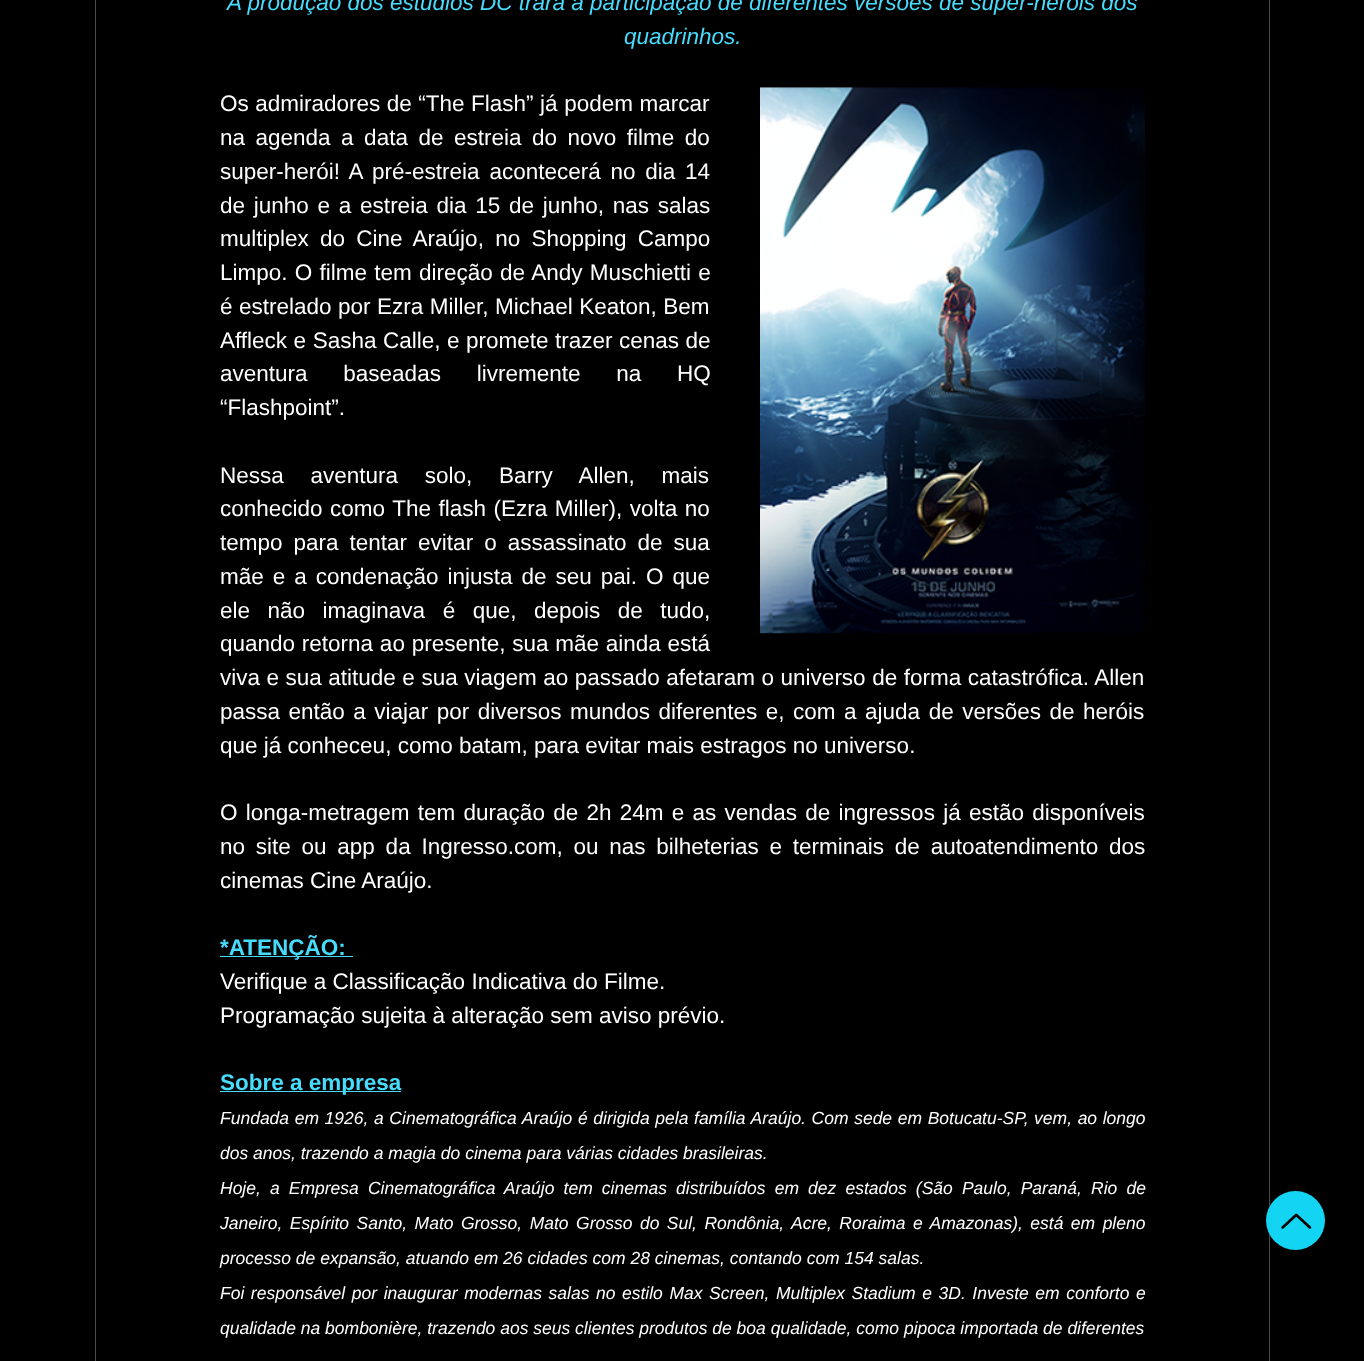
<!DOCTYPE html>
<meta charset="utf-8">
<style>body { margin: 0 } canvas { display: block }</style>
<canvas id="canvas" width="1364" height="1361"></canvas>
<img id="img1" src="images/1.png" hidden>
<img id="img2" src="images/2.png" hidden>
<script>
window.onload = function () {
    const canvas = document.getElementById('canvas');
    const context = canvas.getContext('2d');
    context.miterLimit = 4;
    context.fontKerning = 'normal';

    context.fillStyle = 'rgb(0, 0, 0)';
    context.fillRect(0, 0, 1364, 1361);
    context.strokeStyle = 'rgb(74, 74, 74)';
    context.strokeRect(95.5, -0.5, 1174, 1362);
    context.drawImage(document.getElementById('img1'), 760, 87, 385, 547);
    context.fillStyle = 'rgb(71, 220, 252)';
    context.fillRect(220, 956, 133, 1);
    context.fillRect(220, 1091, 181, 1);
    context.fillStyle = 'rgb(19, 212, 242)';
    context.beginPath();
    context.arc(1295.5, 1220.5, 29.5, 0, 2 * Math.PI);
    context.fill();
    context.drawImage(document.getElementById('img2'), 1281, 1213, 31, 16);
    context.font = 'italic 22.5px Liberation Sans';
    context.fillStyle = 'rgb(71, 220, 252)';
    context.fillText('A produção dos estúdios DC trará a participação de diferentes versões de super-heróis dos', 227, 10);
    context.fillText('quadrinhos.', 624, 44);
    context.wordSpacing = '0.25px';
    context.font = '22.5px Liberation Sans';
    context.fillStyle = 'rgb(255, 255, 255)';
    context.fillText('Os admiradores de “The Flash” já podem marcar', 220, 111);
    context.wordSpacing = '4.25px';
    context.fillText('na agenda a data de estreia do novo filme do', 220, 145);
    context.wordSpacing = '3.5px';
    context.fillText('super-herói! A pré-estreia acontecerá no dia 14', 220, 179);
    context.wordSpacing = '2.5px';
    context.fillText('de junho e a estreia dia 15 de junho, nas salas', 220, 213);
    context.wordSpacing = '5px';
    context.fillText('multiplex do Cine Araújo, no Shopping Campo', 220, 246);
    context.wordSpacing = '1px';
    context.fillText('Limpo. O filme tem direção de Andy Muschietti e', 220, 280);
    context.wordSpacing = '0.25px';
    context.fillText('é estrelado por Ezra Miller, Michael Keaton, Bem', 220, 314);
    context.fillText('Affleck e Sasha Calle, e promete trazer cenas de', 220, 348);
    context.wordSpacing = '29.5px';
    context.fillText('aventura baseadas livremente na HQ', 220, 381);
    context.wordSpacing = '0px';
    context.fillText('“Flashpoint”.', 220, 415);
    context.wordSpacing = '20.5px';
    context.fillText('Nessa aventura solo, Barry Allen, mais', 220, 483);
    context.wordSpacing = '1.25px';
    context.fillText('conhecido como The flash (Ezra Miller), volta no', 220, 516);
    context.wordSpacing = '4.75px';
    context.fillText('tempo para tentar evitar o assassinato de sua', 220, 550);
    context.wordSpacing = '2.75px';
    context.fillText('mãe e a condenação injusta de seu pai. O que', 220, 584);
    context.wordSpacing = '11.25px';
    context.fillText('ele não imaginava é que, depois de tudo,', 220, 618);
    context.wordSpacing = '0.5px';
    context.fillText('quando retorna ao presente, sua mãe ainda está', 220, 651);
    context.wordSpacing = '0.25px';
    context.fillText('viva e sua atitude e sua viagem ao passado afetaram o universo de forma catastrófica. Allen', 220, 685);
    context.wordSpacing = '2.25px';
    context.fillText('passa então a viajar por diversos mundos diferentes e, com a ajuda de versões de heróis', 220, 719);
    context.wordSpacing = '0px';
    context.fillText('que já conheceu, como batam, para evitar mais estragos no universo.', 220, 753);
    context.wordSpacing = '2px';
    context.fillText('O longa-metragem tem duração de 2h 24m e as vendas de ingressos já estão disponíveis', 220, 820);
    context.wordSpacing = '4.5px';
    context.fillText('no site ou app da Ingresso.com, ou nas bilheterias e terminais de autoatendimento dos', 220, 854);
    context.wordSpacing = '0px';
    context.fillText('cinemas Cine Araújo.', 220, 888);
    context.font = 'bold 22.5px Liberation Sans';
    context.fillStyle = 'rgb(71, 220, 252)';
    context.fillText('*ATENÇÃO:', 220, 955);
    context.font = '22.5px Liberation Sans';
    context.fillStyle = 'rgb(255, 255, 255)';
    context.fillText('Verifique a Classificação Indicativa do Filme.', 220, 989);
    context.fillText('Programação sujeita à alteração sem aviso prévio.', 220, 1023);
    context.font = 'bold 22.5px Liberation Sans';
    context.fillStyle = 'rgb(71, 220, 252)';
    context.fillText('Sobre a empresa', 220, 1090);
    context.wordSpacing = '0.75px';
    context.font = 'italic 17.5px Liberation Sans';
    context.fillStyle = 'rgb(255, 255, 255)';
    context.fillText('Fundada em 1926, a Cinematográfica Araújo é dirigida pela família Araújo. Com sede em Botucatu-SP, vem, ao longo', 220, 1124);
    context.wordSpacing = '0px';
    context.fillText('dos anos, trazendo a magia do cinema para várias cidades brasileiras.', 220, 1159);
    context.wordSpacing = '4.25px';
    context.fillText('Hoje, a Empresa Cinematográfica Araújo tem cinemas distribuídos em dez estados (São Paulo, Paraná, Rio de', 220, 1194);
    context.wordSpacing = '2.6px';
    context.fillText('Janeiro, Espírito Santo, Mato Grosso, Mato Grosso do Sul, Rondônia, Acre, Roraima e Amazonas), está em pleno', 220, 1229);
    context.wordSpacing = '0px';
    context.fillText('processo de expansão, atuando em 26 cidades com 28 cinemas, contando com 154 salas.', 220, 1264);
    context.wordSpacing = '1.7px';
    context.fillText('Foi responsável por inaugurar modernas salas no estilo Max Screen, Multiplex Stadium e 3D. Investe em conforto e', 220, 1299);
    context.wordSpacing = '0px';
    context.fillText('qualidade na bombonière, trazendo aos seus clientes produtos de boa qualidade, como pipoca importada de diferentes', 220, 1334);
};
</script>
